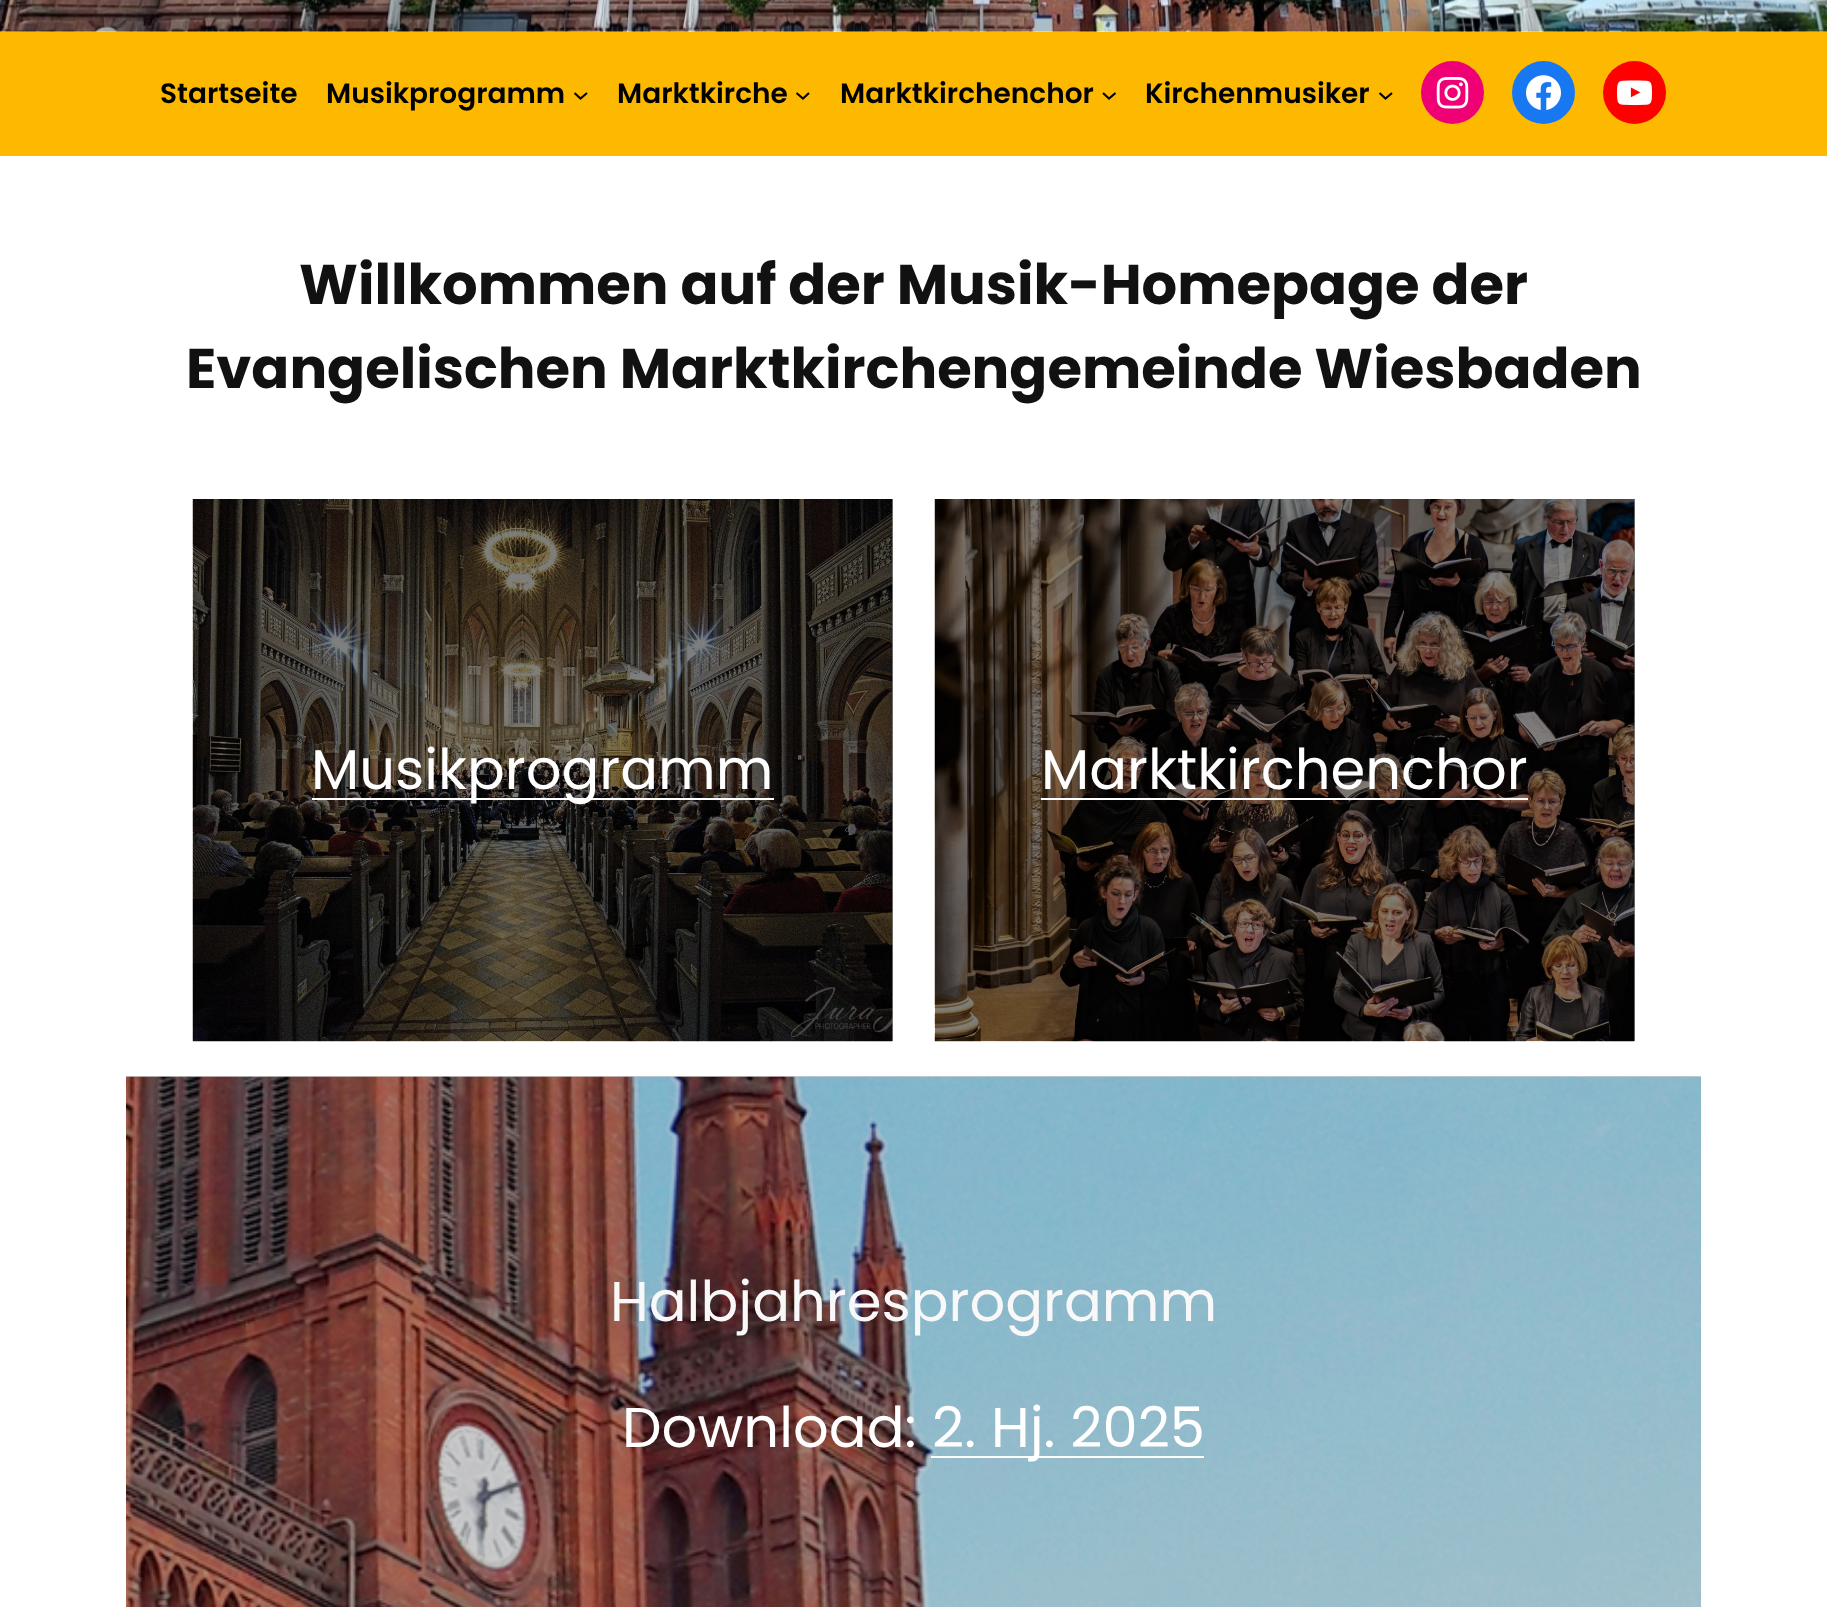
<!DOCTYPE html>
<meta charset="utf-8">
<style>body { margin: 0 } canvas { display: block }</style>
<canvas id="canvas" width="1827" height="1607"></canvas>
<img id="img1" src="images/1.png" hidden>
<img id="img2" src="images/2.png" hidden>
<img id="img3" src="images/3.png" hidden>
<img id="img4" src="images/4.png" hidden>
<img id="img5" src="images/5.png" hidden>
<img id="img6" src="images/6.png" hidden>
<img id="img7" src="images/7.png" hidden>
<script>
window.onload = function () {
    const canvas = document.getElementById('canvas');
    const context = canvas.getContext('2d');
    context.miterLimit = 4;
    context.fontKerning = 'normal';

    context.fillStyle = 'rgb(255, 255, 255)';
    context.fillRect(0, 0, 1827, 1607);
    context.fillStyle = 'rgb(204, 204, 204)';
    context.fillRect(126, 1076, 1575, 1);
    context.fillStyle = 'rgb(128, 128, 128)';
    context.fillRect(1634, 499, 1, 542);
    context.fillRect(892, 499, 1, 542);
    context.drawImage(document.getElementById('img1'), 0, 0, 1827, 32);
    context.fillStyle = 'rgb(252, 185, 0)';
    context.fillRect(0, 32, 1827, 124);
    context.beginPath();
    context.moveTo(574.5, 93);
    context.lineTo(580.5, 98.5);
    context.lineTo(587, 93);
    context.strokeStyle = 'rgb(0, 0, 0)';
    context.lineWidth = 2.1;
    context.stroke();
    context.beginPath();
    context.moveTo(796.5, 93);
    context.lineTo(803, 98.5);
    context.lineTo(809, 93);
    context.stroke();
    context.beginPath();
    context.moveTo(1103, 93);
    context.lineTo(1109, 98.5);
    context.lineTo(1115.5, 93);
    context.stroke();
    context.beginPath();
    context.moveTo(1379.5, 93);
    context.lineTo(1385.5, 98.5);
    context.lineTo(1392, 93);
    context.stroke();
    context.fillStyle = 'rgb(240, 0, 117)';
    context.beginPath();
    context.arc(1452.5, 92.5, 31.5, 0, 2 * Math.PI);
    context.fill();
    context.drawImage(document.getElementById('img2'), 1436, 77, 33, 32);
    context.fillStyle = 'rgb(23, 120, 242)';
    context.beginPath();
    context.arc(1543.5, 92.5, 31.5, 0, 2 * Math.PI);
    context.fill();
    context.drawImage(document.getElementById('img3'), 1526, 75, 35, 35);
    context.fillStyle = 'rgb(255, 0, 0)';
    context.beginPath();
    context.arc(1634.5, 92.5, 31.5, 0, 2 * Math.PI);
    context.fill();
    context.drawImage(document.getElementById('img4'), 1617, 80, 35, 26);
    context.drawImage(document.getElementById('img5'), 192, 499, 701, 543);
    context.fillStyle = 'rgb(255, 255, 255)';
    context.fillRect(312, 798, 462, 2);
    context.drawImage(document.getElementById('img6'), 934, 499, 701, 543);
    context.fillRect(1041, 798, 487, 2);
    context.drawImage(document.getElementById('img7'), 126, 1076, 1575, 531);
    context.fillRect(931, 1456, 273, 2);
    context.font = '600 28px Poppins';
    context.fillStyle = 'rgb(0, 0, 0)';
    context.fillText('Startseite', 160, 103);
    context.fillText('Musikprogramm', 326, 103);
    context.fillText('Marktkirche', 617, 103);
    context.fillText('Marktkirchenchor', 840, 103);
    context.fillText('Kirchenmusiker', 1145, 103);
    context.font = 'bold 56px Poppins';
    context.fillStyle = 'rgb(17, 17, 17)';
    context.fillText('Willkommen auf der Musik-Homepage der', 299, 304);
    context.fillText('Evangelischen Marktkirchengemeinde Wiesbaden', 186, 388);
    context.font = '56px Poppins';
    context.fillStyle = 'rgb(255, 255, 255)';
    context.fillText('Musikprogramm', 311, 789);
    context.fillText('Marktkirchenchor', 1041, 789);
    context.fillStyle = 'rgb(248, 248, 248)';
    context.fillText('Halbjahresprogramm', 610, 1321);
    context.fillStyle = 'rgb(255, 255, 255)';
    context.fillText('Download:', 622, 1447);
    context.fillText('2. Hj. 2025', 932, 1447);
};
</script>
